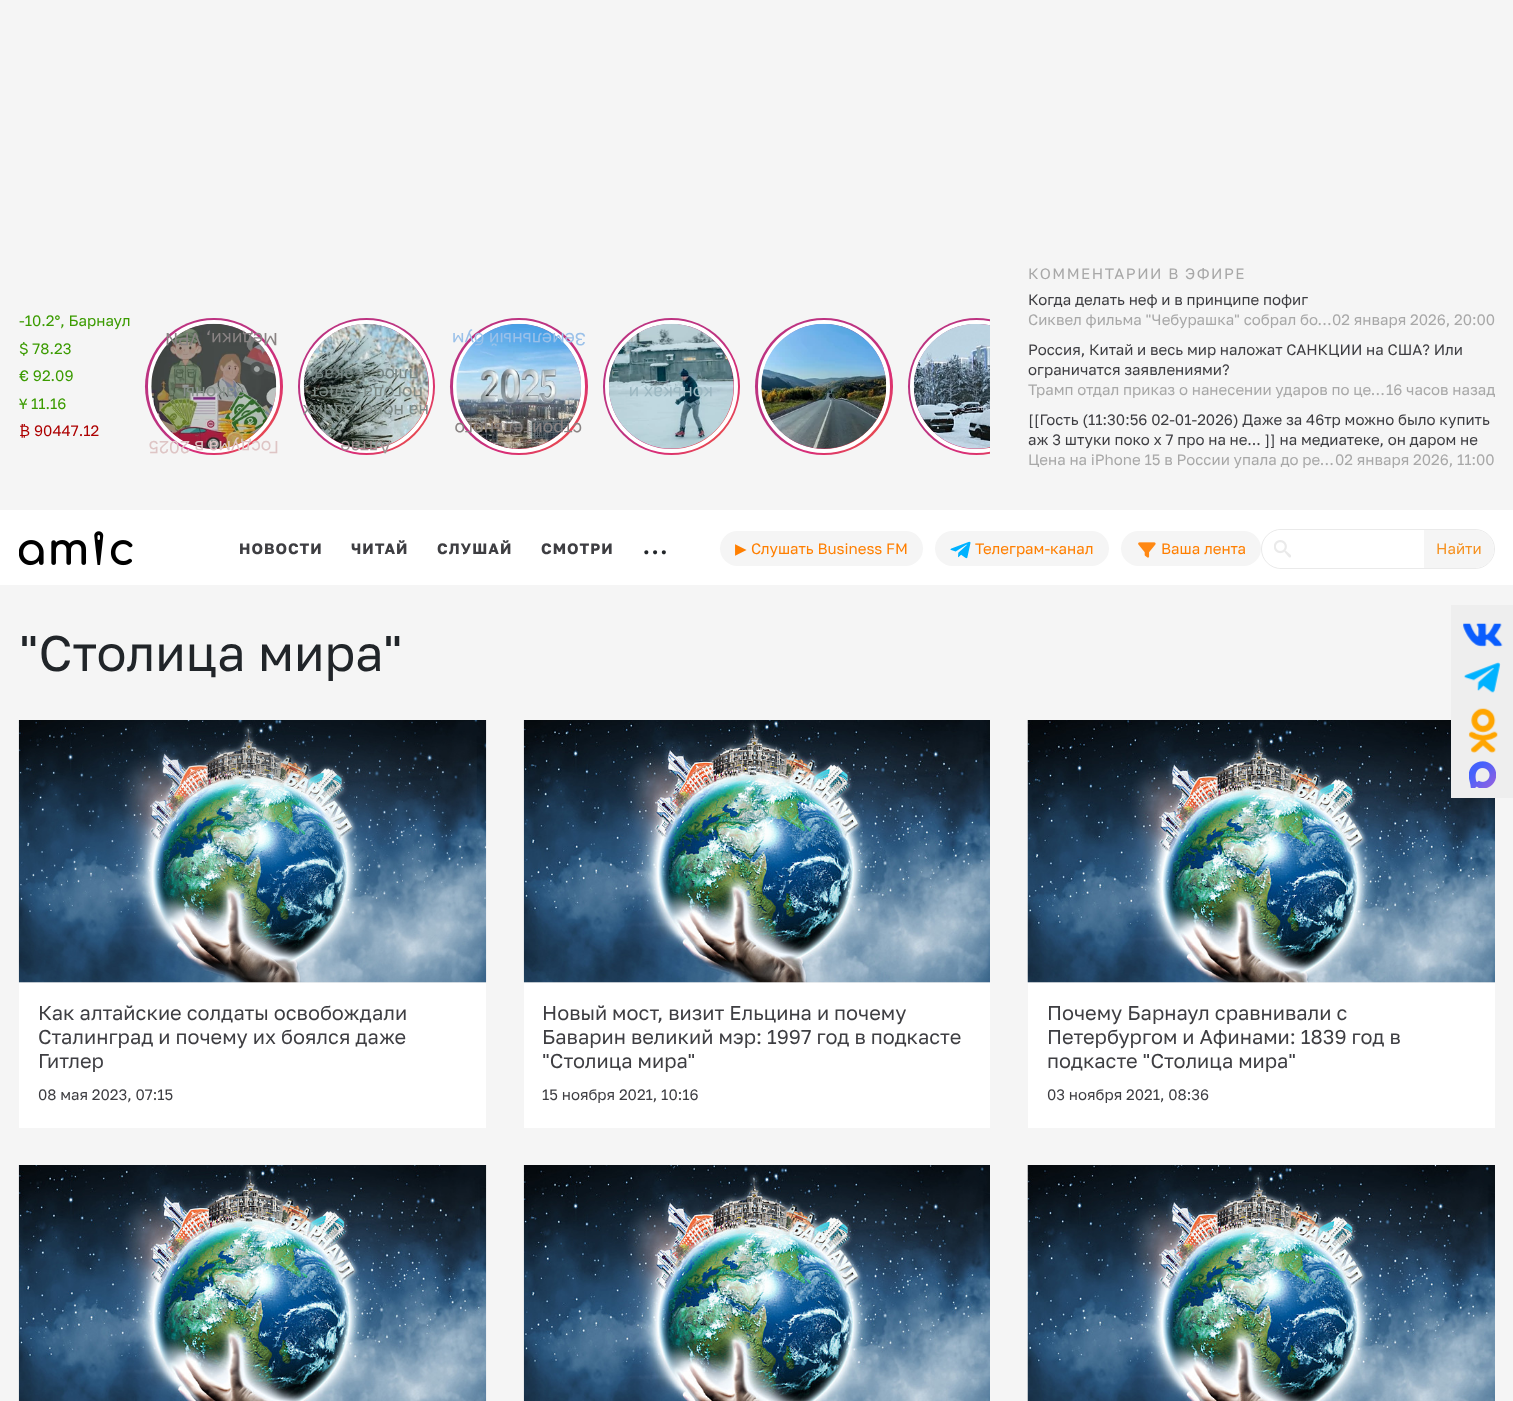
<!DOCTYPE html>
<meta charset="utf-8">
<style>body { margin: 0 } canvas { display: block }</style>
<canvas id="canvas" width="1513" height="1401"></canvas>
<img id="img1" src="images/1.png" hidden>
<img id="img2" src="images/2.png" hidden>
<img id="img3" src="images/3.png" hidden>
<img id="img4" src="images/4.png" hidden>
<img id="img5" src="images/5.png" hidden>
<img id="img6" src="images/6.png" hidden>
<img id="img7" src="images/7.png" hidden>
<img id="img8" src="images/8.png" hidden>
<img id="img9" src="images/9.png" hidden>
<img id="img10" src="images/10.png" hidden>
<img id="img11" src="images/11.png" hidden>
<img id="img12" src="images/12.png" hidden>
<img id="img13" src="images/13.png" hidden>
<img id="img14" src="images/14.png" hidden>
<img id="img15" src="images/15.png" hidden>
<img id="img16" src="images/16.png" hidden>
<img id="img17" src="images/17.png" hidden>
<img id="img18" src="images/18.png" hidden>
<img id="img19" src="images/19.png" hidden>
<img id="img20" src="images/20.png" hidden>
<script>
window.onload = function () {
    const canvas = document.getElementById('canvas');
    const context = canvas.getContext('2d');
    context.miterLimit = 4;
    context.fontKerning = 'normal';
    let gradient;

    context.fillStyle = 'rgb(245, 245, 245)';
    context.fillRect(0, 0, 1513, 1401);
    gradient = context.createRadialGradient(241, 414, 0, 241, 414, 136);
    gradient.addColorStop(0.08, 'rgb(238, 88, 63)');
    gradient.addColorStop(0.42, 'rgb(217, 45, 119)');
    gradient.addColorStop(0.58, 'rgb(189, 51, 129)');
    context.fillStyle = gradient;
    context.beginPath();
    context.roundRect(145, 318, 138, 137, 68.5);
    context.fill();
    context.beginPath();
    context.roundRect(150, 322, 128, 129, 64);
    context.strokeStyle = 'rgb(255, 255, 255)';
    context.lineWidth = 4;
    context.stroke();
    context.drawImage(document.getElementById('img1'), 151, 323, 126, 126);
    gradient = context.createRadialGradient(394, 414, 0, 394, 414, 136);
    gradient.addColorStop(0.08, 'rgb(238, 88, 63)');
    gradient.addColorStop(0.42, 'rgb(217, 45, 119)');
    gradient.addColorStop(0.58, 'rgb(189, 51, 129)');
    context.fillStyle = gradient;
    context.beginPath();
    context.arc(366.5, 386.5, 68.5, 0, 2 * Math.PI);
    context.fill();
    context.beginPath();
    context.arc(366.5, 386.5, 64.5, 0, 2 * Math.PI);
    context.stroke();
    context.drawImage(document.getElementById('img2'), 303, 323, 126, 126);
    gradient = context.createRadialGradient(546, 414, 0, 546, 414, 136);
    gradient.addColorStop(0.08, 'rgb(238, 88, 63)');
    gradient.addColorStop(0.42, 'rgb(217, 45, 119)');
    gradient.addColorStop(0.58, 'rgb(189, 51, 129)');
    context.fillStyle = gradient;
    context.beginPath();
    context.roundRect(450, 318, 138, 137, 68.5);
    context.fill();
    context.beginPath();
    context.roundRect(455, 322, 128, 129, 64);
    context.stroke();
    context.drawImage(document.getElementById('img3'), 456, 323, 126, 126);
    gradient = context.createRadialGradient(699, 414, 0, 699, 414, 136);
    gradient.addColorStop(0.08, 'rgb(238, 88, 63)');
    gradient.addColorStop(0.42, 'rgb(217, 45, 119)');
    gradient.addColorStop(0.58, 'rgb(189, 51, 129)');
    context.fillStyle = gradient;
    context.beginPath();
    context.arc(671.5, 386.5, 68.5, 0, 2 * Math.PI);
    context.fill();
    context.beginPath();
    context.arc(671.5, 386.5, 64.5, 0, 2 * Math.PI);
    context.stroke();
    context.drawImage(document.getElementById('img4'), 608, 323, 126, 126);
    gradient = context.createRadialGradient(851, 414, 0, 851, 414, 136);
    gradient.addColorStop(0.08, 'rgb(238, 88, 63)');
    gradient.addColorStop(0.42, 'rgb(217, 45, 119)');
    gradient.addColorStop(0.58, 'rgb(189, 51, 129)');
    context.fillStyle = gradient;
    context.beginPath();
    context.roundRect(755, 318, 138, 137, 68.5);
    context.fill();
    context.beginPath();
    context.roundRect(760, 322, 128, 129, 64);
    context.stroke();
    context.drawImage(document.getElementById('img5'), 761, 323, 126, 126);
    context.save();
    context.beginPath();
    context.rect(145, 318, 845, 137);
    context.clip();
    gradient = context.createRadialGradient(1004, 414, 0, 1004, 414, 136);
    gradient.addColorStop(0.08, 'rgb(238, 88, 63)');
    gradient.addColorStop(0.42, 'rgb(217, 45, 119)');
    gradient.addColorStop(0.58, 'rgb(189, 51, 129)');
    context.fillStyle = gradient;
    context.beginPath();
    context.arc(976.5, 386.5, 68.5, 0, 2 * Math.PI);
    context.fill();
    context.beginPath();
    context.arc(976.5, 386.5, 64.5, 0, 2 * Math.PI);
    context.stroke();
    context.restore();
    context.drawImage(document.getElementById('img6'), 913, 324, 77, 125);
    context.fillStyle = 'rgb(255, 255, 255)';
    context.fillRect(0, 510, 1513, 75);
    context.drawImage(document.getElementById('img7'), 19, 531, 114, 35);
    context.fillStyle = 'rgb(245, 245, 245)';
    context.beginPath();
    context.roundRect(720, 531, 203, 35, 17.5);
    context.fill();
    context.beginPath();
    context.roundRect(935, 531, 174, 35, 17.5);
    context.fill();
    context.drawImage(document.getElementById('img8'), 950, 541, 21, 18);
    context.beginPath();
    context.roundRect(1121, 531, 140, 35, 17.5);
    context.fill();
    context.drawImage(document.getElementById('img9'), 1138, 542, 18, 16);
    context.beginPath();
    context.roundRect(1261.5, 529.5, 233, 39, 19.5);
    context.strokeStyle = 'rgb(234, 234, 234)';
    context.lineWidth = 1;
    context.stroke();
    context.fillStyle = 'rgb(255, 255, 255)';
    context.beginPath();
    context.roundRect(1263, 530, 161, 38, [19, 0, 0, 19]);
    context.fill();
    context.drawImage(document.getElementById('img10'), 1274, 540, 17, 18);
    context.fillStyle = 'rgb(245, 245, 245)';
    context.beginPath();
    context.roundRect(1424, 530, 70, 38, [0, 19, 19, 0]);
    context.fill();
    context.drawImage(document.getElementById('img11'), 18, 720, 469, 263);
    context.fillStyle = 'rgb(255, 255, 255)';
    context.fillRect(19, 983, 467, 145);
    context.drawImage(document.getElementById('img12'), 523, 720, 467, 263);
    context.fillRect(524, 983, 466, 145);
    context.drawImage(document.getElementById('img13'), 1027, 720, 468, 263);
    context.fillRect(1028, 983, 467, 145);
    context.drawImage(document.getElementById('img14'), 18, 1165, 469, 236);
    context.drawImage(document.getElementById('img15'), 523, 1165, 467, 236);
    context.drawImage(document.getElementById('img16'), 1027, 1165, 468, 236);
    context.fillStyle = 'rgb(238, 238, 238)';
    context.fillRect(1451, 605, 62, 193);
    context.drawImage(document.getElementById('img17'), 1463, 623, 40, 24);
    context.drawImage(document.getElementById('img18'), 1464, 662, 37, 31);
    context.drawImage(document.getElementById('img19'), 1468, 708, 30, 45);
    context.drawImage(document.getElementById('img20'), 1469, 761, 27, 27);
    context.font = '15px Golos';
    context.fillStyle = 'rgb(59, 155, 0)';
    context.fillText('-10.2°, Барнаул', 19, 326);
    context.fillText('$ 78.23', 19, 354);
    context.fillText('€ 92.09', 19, 381);
    context.font = '15px Liberation Sans';
    context.fillText('Ұ', 19, 409);
    context.font = '15px Golos';
    context.fillText('11.16', 31, 409);
    context.font = '15px Liberation Sans';
    context.fillStyle = 'rgb(173, 0, 0)';
    context.fillText('₿', 19, 436);
    context.font = '15px Golos';
    context.fillText('90447.12', 34, 436);
    context.font = '17.5px Golos';
    context.fillStyle = 'rgb(137, 131, 131)';
    context.save();
    context.translate(278, 333);
    context.rotate(180 * Math.PI / 180);
    context.fillText('Медики, VPN', 0, 0);
    context.restore();
    context.fillStyle = 'rgb(136, 145, 140)';
    context.save();
    context.translate(245, 387);
    context.rotate(180 * Math.PI / 180);
    context.fillText('законы', 0, 0);
    context.restore();
    context.fillStyle = 'rgb(222, 197, 197)';
    context.save();
    context.translate(279, 441);
    context.rotate(180 * Math.PI / 180);
    context.fillText('Госдума в 2025', 0, 0);
    context.restore();
    context.fillStyle = 'rgb(120, 134, 133)';
    context.save();
    context.translate(419, 369);
    context.rotate(180 * Math.PI / 180);
    context.fillText('плюс. Какая', 0, 0);
    context.restore();
    context.fillStyle = 'rgb(126, 138, 135)';
    context.save();
    context.translate(423, 387);
    context.rotate(180 * Math.PI / 180);
    context.fillText('погода будет', 0, 0);
    context.restore();
    context.save();
    context.translate(429, 405);
    context.rotate(180 * Math.PI / 180);
    context.fillText('на новогодних', 0, 0);
    context.restore();
    context.fillStyle = 'rgb(159, 148, 148)';
    context.save();
    context.translate(391, 441);
    context.rotate(180 * Math.PI / 180);
    context.fillText('Алтае', 0, 0);
    context.restore();
    context.fillStyle = 'rgb(155, 193, 233)';
    context.save();
    context.translate(586, 333);
    context.rotate(180 * Math.PI / 180);
    context.fillText('Земельный бум', 0, 0);
    context.restore();
    context.fillStyle = 'rgb(137, 131, 131)';
    context.save();
    context.translate(582, 423);
    context.rotate(180 * Math.PI / 180);
    context.fillText('строительного', 0, 0);
    context.restore();
    context.fillStyle = 'rgb(156, 184, 194)';
    context.save();
    context.translate(713, 387);
    context.rotate(180 * Math.PI / 180);
    context.fillText('коньках и', 0, 0);
    context.restore();
    context.letterSpacing = '1.5px';
    context.font = '15px Golos';
    context.fillStyle = 'rgb(168, 168, 168)';
    context.fillText('КОММЕНТАРИИ В ЭФИРЕ', 1028, 279);
    context.letterSpacing = '0px';
    context.fillStyle = 'rgb(62, 62, 66)';
    context.fillText('Когда делать неф и в принципе пофиг', 1028, 305);
    context.fillStyle = 'rgb(168, 168, 168)';
    context.fillText('Сиквел фильма "Чебурашка" собрал бо…', 1028, 325);
    context.fillText('02 января 2026, 20:00', 1332, 325);
    context.fillStyle = 'rgb(62, 62, 66)';
    context.fillText('Россия, Китай и весь мир наложат САНКЦИИ на США? Или', 1028, 355);
    context.fillText('ограничатся заявлениями?', 1028, 375);
    context.fillStyle = 'rgb(168, 168, 168)';
    context.fillText('Трамп отдал приказ о нанесении ударов по це…', 1028, 395);
    context.fillText('16 часов назад', 1386, 395);
    context.fillStyle = 'rgb(62, 62, 66)';
    context.fillText('[[Гость (11:30:56 02-01-2026) Даже за 46тр можно было купить', 1028, 425);
    context.fillText('аж 3 штуки поко х 7 про на не... ]] на медиатеке, он даром не', 1028, 445);
    context.fillStyle = 'rgb(168, 168, 168)';
    context.fillText('Цена на iPhone 15 в России упала до ре…', 1028, 465);
    context.fillText('02 января 2026, 11:00', 1335, 465);
    context.letterSpacing = '1px';
    context.font = 'bold 15px Golos';
    context.fillStyle = 'rgb(62, 62, 66)';
    context.fillText('НОВОСТИ', 239, 554);
    context.fillText('ЧИТАЙ', 351, 554);
    context.fillText('СЛУШАЙ', 437, 554);
    context.fillText('СМОТРИ', 541, 554);
    context.letterSpacing = '0px';
    context.font = '29px Golos';
    context.fillStyle = 'rgb(33, 37, 41)';
    context.fillText('...', 642, 554);
    context.font = '15px DejaVu Sans';
    context.fillStyle = 'rgb(255, 127, 0)';
    context.fillText('▶', 735, 554);
    context.font = '15px Golos';
    context.fillText('Слушать Business FM', 751, 554);
    context.fillText('Телеграм-канал', 975, 554);
    context.fillText('Ваша лента', 1161, 554);
    context.fillStyle = 'rgb(246, 145, 31)';
    context.fillText('Найти', 1436, 554);
    context.font = '50px Golos';
    context.fillStyle = 'rgb(33, 37, 41)';
    context.fillText('"Столица мира"', 19, 671);
    context.font = '20px Golos';
    context.fillStyle = 'rgb(62, 62, 66)';
    context.fillText('Как алтайские солдаты освобождали', 38, 1020);
    context.fillText('Сталинград и почему их боялся даже', 38, 1044);
    context.fillText('Гитлер', 38, 1068);
    context.font = '15px Golos';
    context.fillText('08 мая 2023, 07:15', 38, 1100);
    context.font = '20px Golos';
    context.fillText('Новый мост, визит Ельцина и почему', 542, 1020);
    context.fillText('Баварин великий мэр: 1997 год в подкасте', 542, 1044);
    context.fillText('"Столица мира"', 542, 1068);
    context.font = '15px Golos';
    context.fillText('15 ноября 2021, 10:16', 542, 1100);
    context.font = '20px Golos';
    context.fillText('Почему Барнаул сравнивали с', 1047, 1020);
    context.fillText('Петербургом и Афинами: 1839 год в', 1047, 1044);
    context.fillText('подкасте "Столица мира"', 1047, 1068);
    context.font = '15px Golos';
    context.fillText('03 ноября 2021, 08:36', 1047, 1100);
};
</script>
